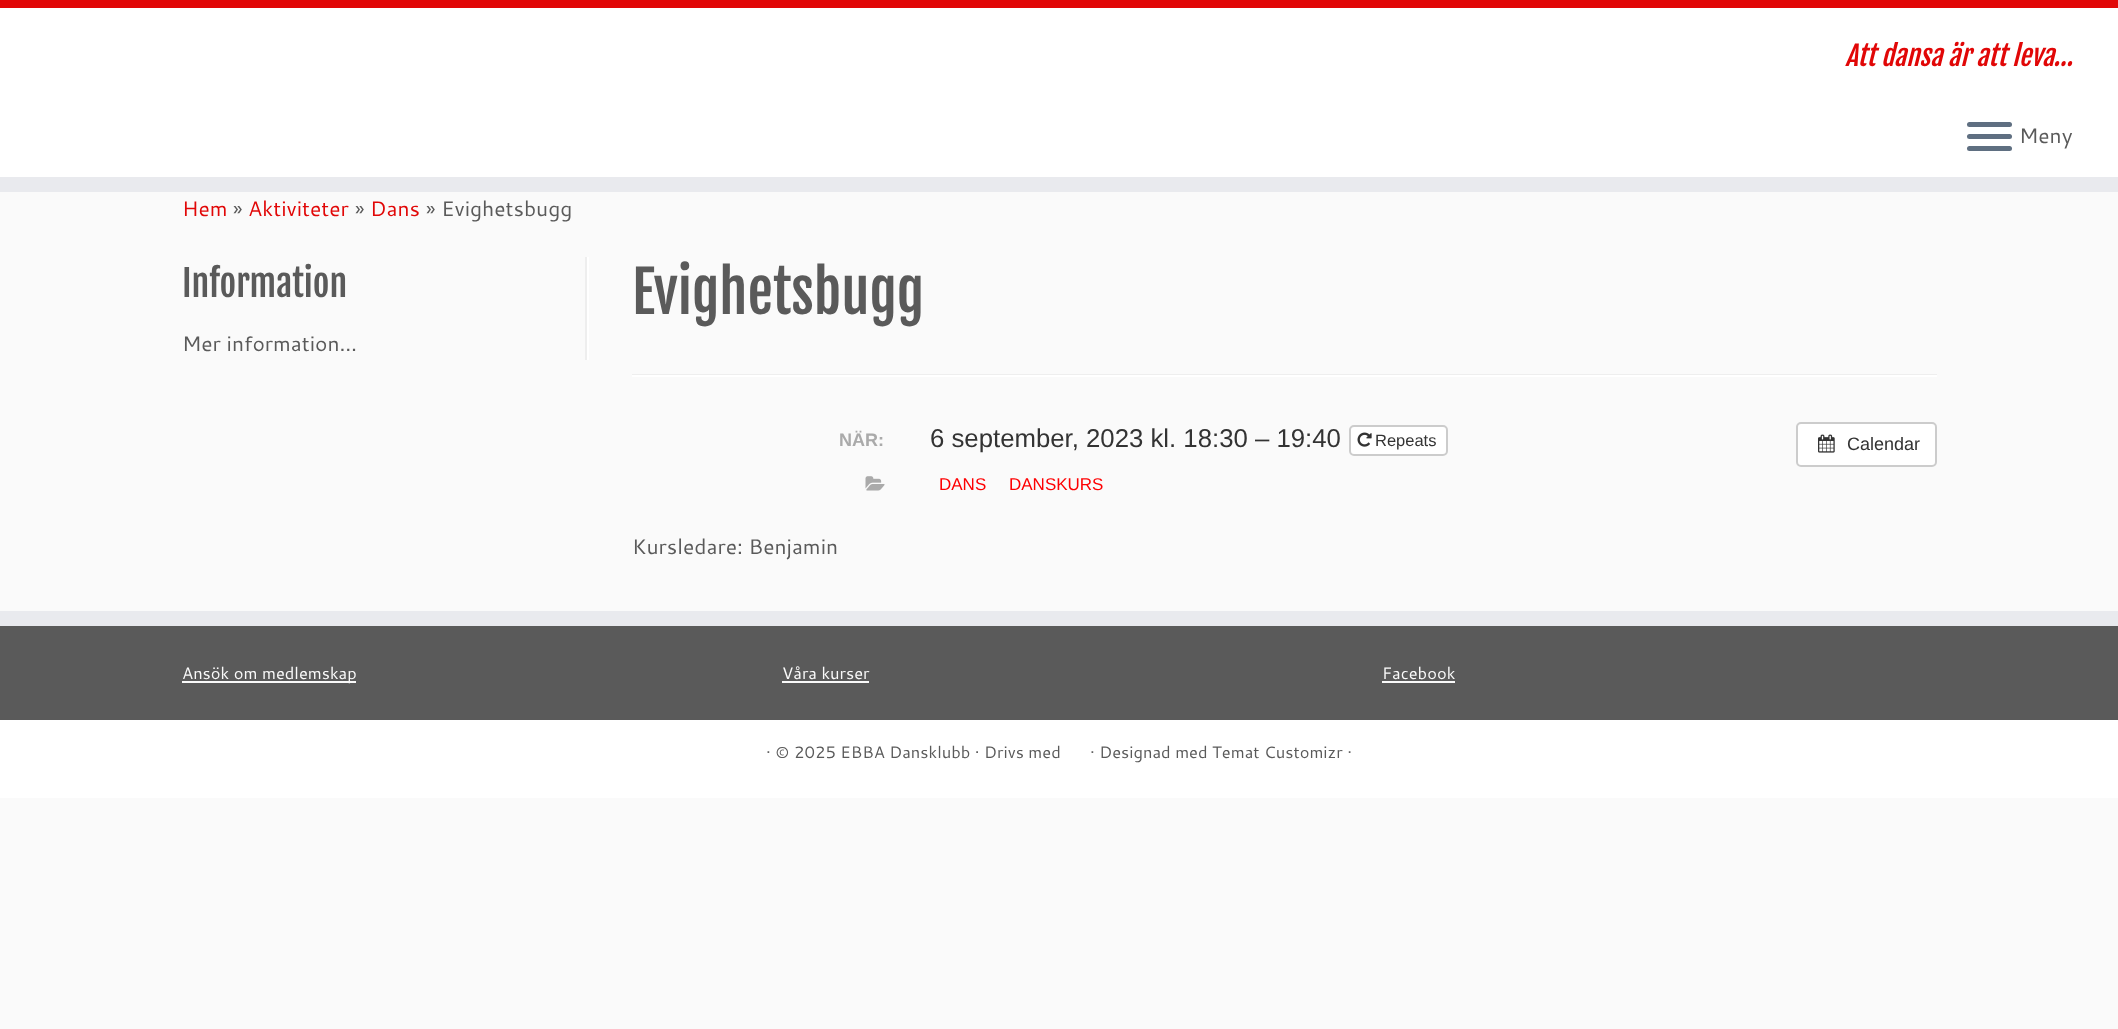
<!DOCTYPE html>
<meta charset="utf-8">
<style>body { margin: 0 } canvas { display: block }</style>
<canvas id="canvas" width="2118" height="1029"></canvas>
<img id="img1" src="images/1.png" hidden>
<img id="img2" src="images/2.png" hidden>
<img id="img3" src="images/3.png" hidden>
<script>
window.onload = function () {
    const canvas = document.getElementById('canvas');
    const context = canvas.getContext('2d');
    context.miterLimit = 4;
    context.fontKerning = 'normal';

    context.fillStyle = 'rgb(250, 250, 250)';
    context.fillRect(0, 0, 2118, 1029);
    context.fillStyle = 'rgb(255, 255, 255)';
    context.fillRect(0, 8, 2118, 169);
    context.fillStyle = 'rgb(225, 7, 7)';
    context.fillRect(0, 0, 2118, 8);
    context.fillStyle = 'rgb(233, 234, 238)';
    context.fillRect(0, 177, 2118, 15);
    context.fillStyle = 'rgb(95, 111, 129)';
    context.beginPath();
    context.roundRect(1967, 122, 45, 5, 2.5);
    context.fill();
    context.beginPath();
    context.roundRect(1967, 134, 45, 5, 2.5);
    context.fill();
    context.beginPath();
    context.roundRect(1967, 146, 45, 5, 2.5);
    context.fill();
    context.fillStyle = 'rgb(238, 238, 238)';
    context.fillRect(585, 257, 2, 103);
    context.fillStyle = 'rgb(255, 255, 255)';
    context.fillRect(587, 257, 2, 103);
    context.fillStyle = 'rgb(238, 238, 238)';
    context.fillRect(632, 374, 1305, 1);
    context.fillStyle = 'rgb(255, 255, 255)';
    context.fillRect(632, 375, 1305, 2);
    context.beginPath();
    context.roundRect(1350, 426, 97, 29, 4);
    context.fill();
    context.strokeStyle = 'rgb(204, 204, 204)';
    context.lineWidth = 2;
    context.stroke();
    context.drawImage(document.getElementById('img1'), 1357, 432, 15, 15);
    context.drawImage(document.getElementById('img2'), 865, 476, 20, 15);
    context.beginPath();
    context.roundRect(1797, 423, 139, 43, 4);
    context.fill();
    context.stroke();
    context.drawImage(document.getElementById('img3'), 1818, 434, 17, 19);
    context.fillStyle = 'rgb(90, 90, 90)';
    context.fillRect(0, 626, 2118, 94);
    context.fillStyle = 'rgb(233, 234, 238)';
    context.fillRect(0, 611, 2118, 15);
    context.fillStyle = 'rgb(250, 250, 250)';
    context.fillRect(182, 681, 174, 2);
    context.fillRect(782, 681, 87, 2);
    context.fillRect(1382, 681, 73, 2);
    context.fillStyle = 'rgb(255, 255, 255)';
    context.fillRect(0, 720, 2118, 78);
    context.font = 'italic 27px Fjalla One';
    context.fillStyle = 'rgb(225, 7, 7)';
    context.fillText('Att dansa är att leva…', 1845, 66);
    context.font = '21px Cantarell';
    context.fillStyle = 'rgb(90, 90, 90)';
    context.fillText('Meny', 2019, 143);
    context.fillStyle = 'rgb(225, 7, 7)';
    context.fillText('Hem', 182, 216);
    context.fillStyle = 'rgb(90, 90, 90)';
    context.fillText('»', 233, 216);
    context.fillStyle = 'rgb(225, 7, 7)';
    context.fillText('Aktiviteter', 248, 216);
    context.fillStyle = 'rgb(90, 90, 90)';
    context.fillText('»', 355, 216);
    context.fillStyle = 'rgb(225, 7, 7)';
    context.fillText('Dans', 370, 216);
    context.fillStyle = 'rgb(90, 90, 90)';
    context.fillText('» Evighetsbugg', 426, 216);
    context.font = '36px Fjalla One';
    context.fillText('Information', 182, 297);
    context.font = '21px Cantarell';
    context.fillText('Mer information…', 182, 351);
    context.font = '57px Fjalla One';
    context.fillText('Evighetsbugg', 632, 314);
    context.font = 'bold 18px Liberation Sans';
    context.fillStyle = 'rgb(170, 170, 170)';
    context.fillText('NÄR:', 839, 446);
    context.font = '25.75px Liberation Sans';
    context.fillStyle = 'rgb(51, 51, 51)';
    context.fillText('6 september, 2023 kl. 18:30 – 19:40', 930, 447);
    context.font = '16.5px Liberation Sans';
    context.fillText('Repeats', 1375, 446);
    context.font = '17px Liberation Sans';
    context.fillStyle = 'rgb(254, 0, 2)';
    context.fillText('DANS', 939, 490);
    context.fillText('DANSKURS', 1009, 490);
    context.font = '18px Liberation Sans';
    context.fillStyle = 'rgb(51, 51, 51)';
    context.fillText('Calendar', 1847, 450);
    context.font = '21px Cantarell';
    context.fillStyle = 'rgb(90, 90, 90)';
    context.fillText('Kursledare: Benjamin', 632, 554);
    context.font = '16.5px Cantarell';
    context.fillStyle = 'rgb(250, 250, 250)';
    context.fillText('Ansök om medlemskap', 182, 679);
    context.fillText('Våra kurser', 782, 679);
    context.fillText('Facebook', 1382, 679);
    context.fillStyle = 'rgb(90, 90, 90)';
    context.fillText('· © 2025 EBBA Dansklubb · Drivs med', 766, 758);
    context.fillText('· Designad med Temat Customizr ·', 1090, 758);
};
</script>
